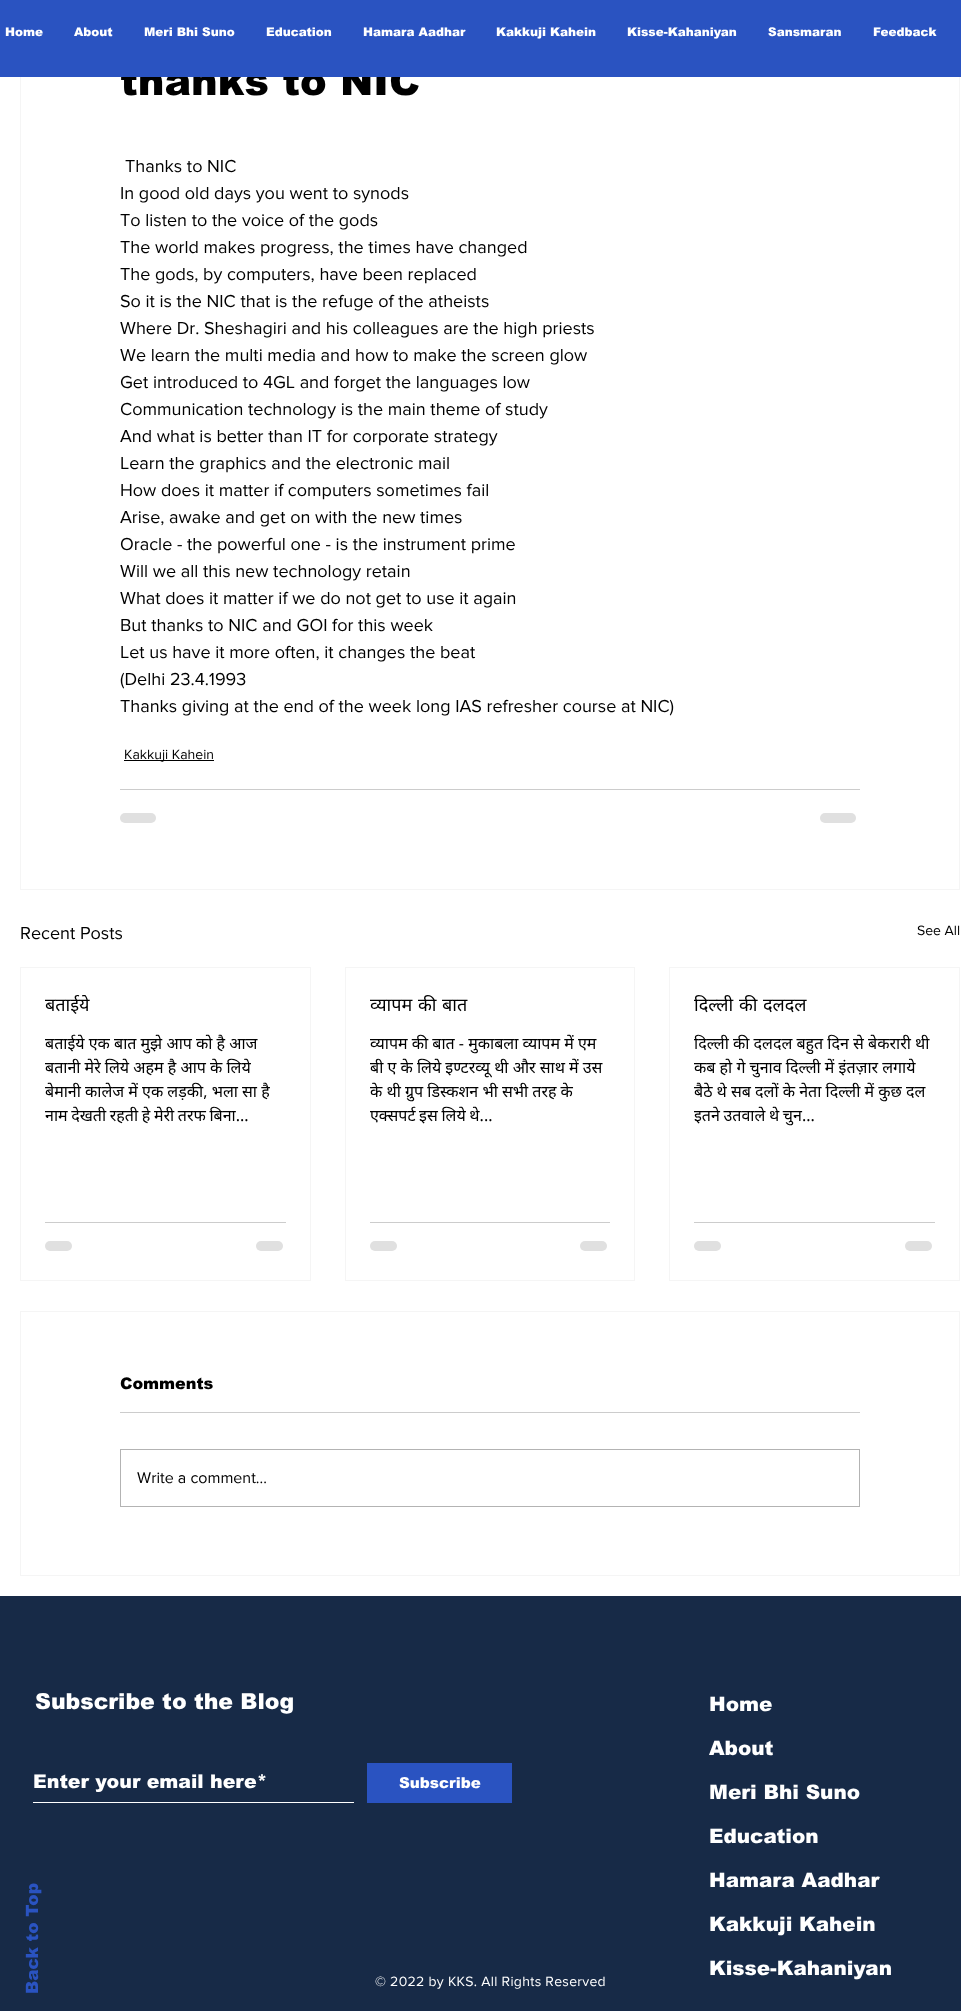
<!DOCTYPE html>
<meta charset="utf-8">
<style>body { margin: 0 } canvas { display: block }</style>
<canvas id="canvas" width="961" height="2011"></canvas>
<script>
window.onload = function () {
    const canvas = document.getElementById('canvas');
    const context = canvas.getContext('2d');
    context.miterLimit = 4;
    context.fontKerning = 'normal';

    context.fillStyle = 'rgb(255, 255, 255)';
    context.fillRect(0, 0, 961, 2011);
    context.strokeStyle = 'rgb(245, 245, 245)';
    context.strokeRect(20.5, -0.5, 939, 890);
    context.fillStyle = 'rgb(0, 0, 0)';
    context.fillRect(124, 760, 90, 1);
    context.fillStyle = 'rgb(204, 204, 204)';
    context.fillRect(120, 789, 740, 1);
    context.fillStyle = 'rgb(224, 224, 224)';
    context.beginPath();
    context.roundRect(120, 813, 36, 10, 5);
    context.fill();
    context.beginPath();
    context.roundRect(820, 813, 36, 10, 5);
    context.fill();
    context.strokeRect(20.5, 967.5, 290, 313);
    context.fillStyle = 'rgb(204, 204, 204)';
    context.fillRect(45, 1222, 241, 1);
    context.fillStyle = 'rgb(224, 224, 224)';
    context.beginPath();
    context.roundRect(45, 1241, 27, 10, 5);
    context.fill();
    context.beginPath();
    context.roundRect(256, 1241, 27, 10, 5);
    context.fill();
    context.strokeRect(345.5, 967.5, 289, 313);
    context.fillStyle = 'rgb(204, 204, 204)';
    context.fillRect(370, 1222, 240, 1);
    context.fillStyle = 'rgb(224, 224, 224)';
    context.beginPath();
    context.roundRect(370, 1241, 27, 10, 5);
    context.fill();
    context.beginPath();
    context.roundRect(580, 1241, 27, 10, 5);
    context.fill();
    context.strokeRect(669.5, 967.5, 290, 313);
    context.fillStyle = 'rgb(204, 204, 204)';
    context.fillRect(694, 1222, 241, 1);
    context.fillStyle = 'rgb(224, 224, 224)';
    context.beginPath();
    context.roundRect(694, 1241, 27, 10, 5);
    context.fill();
    context.beginPath();
    context.roundRect(905, 1241, 27, 10, 5);
    context.fill();
    context.strokeRect(20.5, 1311.5, 939, 264);
    context.fillStyle = 'rgb(204, 204, 204)';
    context.fillRect(120, 1412, 740, 1);
    context.strokeStyle = 'rgb(179, 179, 179)';
    context.strokeRect(120.5, 1449.5, 739, 57);
    context.fillStyle = 'rgb(23, 42, 71)';
    context.fillRect(0, 1596, 961, 415);
    context.fillStyle = 'rgb(255, 255, 255)';
    context.fillRect(33, 1802, 321, 1);
    context.fillStyle = 'rgb(42, 83, 193)';
    context.fillRect(367, 1763, 145, 40);
    context.font = '900 40px arial';
    context.fillStyle = 'rgb(0, 0, 0)';
    context.fillText('thanks to NIC', 120, 95);
    context.fillStyle = 'rgb(42, 83, 193)';
    context.fillRect(0, 0, 961, 77);
    context.font = '900 12px arial';
    context.fillStyle = 'rgb(255, 255, 255)';
    context.fillText('Feedback', 873, 36);
    context.fillText('Sansmaran', 768, 36);
    context.fillText('Kisse-Kahaniyan', 627, 36);
    context.fillText('Kakkuji Kahein', 496, 36);
    context.fillText('Hamara Aadhar', 363, 36);
    context.fillText('Education', 266, 36);
    context.fillText('Meri Bhi Suno', 144, 36);
    context.fillText('About', 74, 36);
    context.fillText('Home', 5, 36);
    context.font = '18px "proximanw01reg"';
    context.fillStyle = 'rgb(0, 0, 0)';
    context.fillText('Thanks to NIC', 125, 172);
    context.fillText('In good old days you went to synods', 120, 199);
    context.fillText('To listen to the voice of the gods', 120, 226);
    context.fillText('The world makes progress, the times have changed', 120, 253);
    context.fillText('The gods, by computers, have been replaced', 120, 280);
    context.fillText('So it is the NIC that is the refuge of the atheists', 120, 307);
    context.fillText('Where Dr. Sheshagiri and his colleagues are the high priests', 120, 334);
    context.fillText('We learn the multi media and how to make the screen glow', 120, 361);
    context.fillText('Get introduced to 4GL and forget the languages low', 120, 388);
    context.fillText('Communication technology is the main theme of study', 120, 415);
    context.fillText('And what is better than IT for corporate strategy', 120, 442);
    context.fillText('Learn the graphics and the electronic mail', 120, 469);
    context.fillText('How does it matter if computers sometimes fail', 120, 496);
    context.fillText('Arise, awake and get on with the new times', 120, 523);
    context.fillText('Oracle - the powerful one - is the instrument prime', 120, 550);
    context.fillText('Will we all this new technology retain', 120, 577);
    context.fillText('What does it matter if we do not get to use it again', 120, 604);
    context.fillText('But thanks to NIC and GOI for this week', 120, 631);
    context.fillText('Let us have it more often, it changes the beat', 120, 658);
    context.fillText('(Delhi 23.4.1993', 120, 685);
    context.fillText('Thanks giving at the end of the week long IAS refresher course at NIC)', 120, 712);
    context.font = '14px "proximanw01reg"';
    context.fillText('Kakkuji Kahein', 124, 759);
    context.font = '18px "proximanw01reg"';
    context.fillText('Recent Posts', 20, 939);
    context.font = '14px "proximanw01reg"';
    context.fillText('See All', 917, 935);
    context.font = '18px Noto Sans';
    context.fillText('बताईये', 45, 1011);
    context.font = '16px Noto Sans';
    context.fillText('बताईये एक बात मुझे आप को है आज', 45, 1049);
    context.fillText('बतानी मेरे लिये अहम है आप के लिये', 45, 1073);
    context.save();
    context.beginPath();
    context.rect(45, 1032, 241, 96);
    context.clip();
    context.fillText('बेमानी कालेज में एक लड़की, भला सा है', 45, 1097);
    context.restore();
    context.wordSpacing = '-0.5px';
    context.fillText('नाम देखती रहती हे मेरी तरफ बिना...', 45, 1121);
    context.wordSpacing = '1px';
    context.font = '18px Noto Sans';
    context.fillText('व्यापम की बात', 370, 1011);
    context.wordSpacing = '0px';
    context.font = '16px Noto Sans';
    context.fillText('व्यापम की बात - मुकाबला व्यापम में एम', 370, 1049);
    context.save();
    context.beginPath();
    context.rect(370, 1032, 240, 96);
    context.clip();
    context.fillText('बी ए के लिये इण्टरव्यू थी और साथ में उस', 370, 1073);
    context.fillText('के थी ग्रुप डिस्कशन भी सभी तरह के', 370, 1097);
    context.restore();
    context.wordSpacing = '-0.5px';
    context.fillText('एक्सपर्ट इस लिये थे...', 370, 1121);
    context.wordSpacing = '1px';
    context.font = '18px Noto Sans';
    context.fillText('दिल्ली की दलदल', 694, 1011);
    context.wordSpacing = '0px';
    context.font = '16px Noto Sans';
    context.fillText('दिल्ली की दलदल बहुत दिन से बेकरारी थी', 694, 1049);
    context.fillText('कब हो गे चुनाव दिल्ली में इंतज़ार लगाये', 694, 1073);
    context.save();
    context.beginPath();
    context.rect(694, 1032, 241, 96);
    context.clip();
    context.fillText('बैठे थे सब दलों के नेता दिल्ली में कुछ दल', 694, 1097);
    context.restore();
    context.wordSpacing = '-0.5px';
    context.fillText('इतने उतवाले थे चुन...', 694, 1121);
    context.wordSpacing = '0px';
    context.font = '900 16px arial';
    context.fillText('Comments', 120, 1389);
    context.font = '16px "proximanw01reg"';
    context.fillText('Write a comment...', 137, 1483);
    context.font = '900 17px arial';
    context.fillStyle = 'rgb(42, 83, 193)';
    context.save();
    context.translate(38, 1994);
    context.rotate(-90 * Math.PI / 180);
    context.fillText('Back to Top', 0, 0);
    context.restore();
    context.font = '900 22px arial';
    context.fillStyle = 'rgb(255, 255, 255)';
    context.fillText('Subscribe to the Blog', 35, 1709);
    context.font = '900 20px arial';
    context.fillText('Home', 709, 1711);
    context.fillText('About', 709, 1755);
    context.fillText('Meri Bhi Suno', 709, 1799);
    context.fillText('Education', 709, 1843);
    context.fillText('Hamara Aadhar', 709, 1887);
    context.fillText('Kakkuji Kahein', 709, 1931);
    context.fillText('Kisse-Kahaniyan', 709, 1975);
    context.font = '900 19px arial';
    context.fillText('Enter your email here*', 33, 1788);
    context.font = '900 15px arial';
    context.fillText('Subscribe', 399, 1788);
    context.letterSpacing = '0.3px';
    context.font = '14px "proximanw01reg"';
    context.fillText('© 2022 by KKS. All Rights Reserved', 375, 1986);
};
</script>
